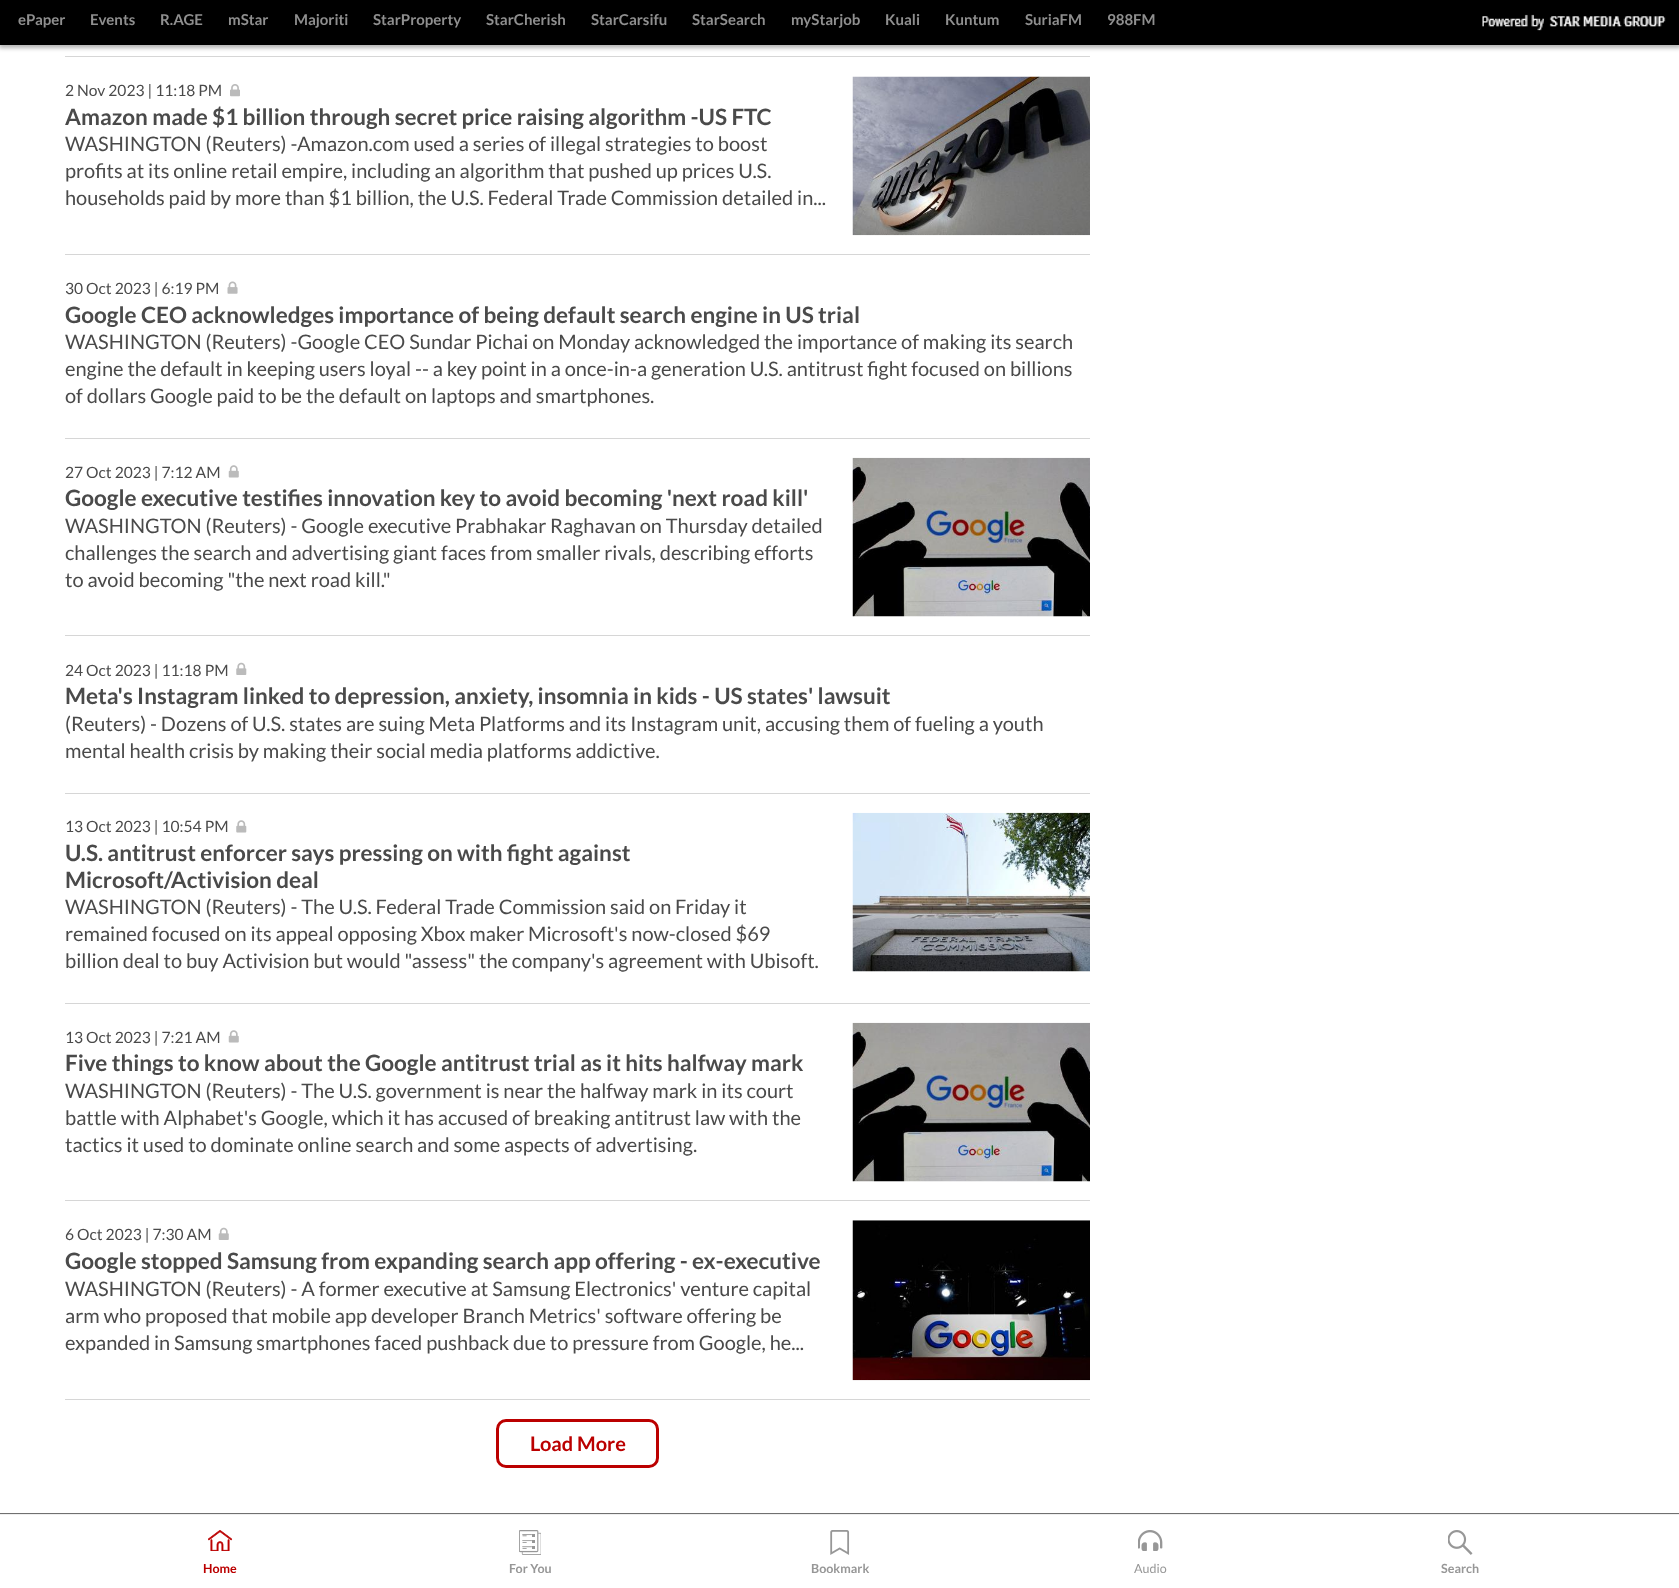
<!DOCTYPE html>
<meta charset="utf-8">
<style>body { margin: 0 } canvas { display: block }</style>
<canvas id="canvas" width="1679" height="1588"></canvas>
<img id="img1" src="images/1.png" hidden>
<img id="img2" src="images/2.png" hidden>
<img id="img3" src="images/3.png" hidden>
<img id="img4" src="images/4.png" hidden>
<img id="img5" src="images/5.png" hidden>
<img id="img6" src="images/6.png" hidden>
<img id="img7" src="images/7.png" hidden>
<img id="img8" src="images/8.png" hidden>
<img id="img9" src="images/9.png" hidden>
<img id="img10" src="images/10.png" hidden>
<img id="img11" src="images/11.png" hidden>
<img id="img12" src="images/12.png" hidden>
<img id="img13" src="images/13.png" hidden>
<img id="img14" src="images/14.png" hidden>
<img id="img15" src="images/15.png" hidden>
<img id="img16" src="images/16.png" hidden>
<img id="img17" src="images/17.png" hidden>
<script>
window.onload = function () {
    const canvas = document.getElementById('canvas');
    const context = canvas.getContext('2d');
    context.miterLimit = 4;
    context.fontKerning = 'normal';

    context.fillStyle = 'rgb(255, 255, 255)';
    context.fillRect(0, 0, 1679, 1588);
    context.fillStyle = 'rgba(0, 0, 0, 0.3)';
    context.filter = 'blur(2px)';
    context.beginPath();
    context.rect(-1, 0, 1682, 48);
    context.fill();
    context.filter = 'none';
    context.fillStyle = 'rgb(0, 0, 0)';
    context.fillRect(0, 0, 1679, 45);
    context.drawImage(document.getElementById('img1'), 1482, 14, 184, 17);
    context.fillStyle = 'rgb(214, 214, 214)';
    context.fillRect(65, 56, 1025, 1);
    context.fillRect(65, 254, 1025, 1);
    context.drawImage(document.getElementById('img2'), 230, 84, 10, 13);
    context.drawImage(document.getElementById('img3'), 852, 76, 238, 160);
    context.fillRect(65, 438, 1025, 1);
    context.drawImage(document.getElementById('img4'), 227, 281, 11, 13);
    context.fillRect(65, 635, 1025, 1);
    context.drawImage(document.getElementById('img5'), 228, 465, 11, 13);
    context.drawImage(document.getElementById('img6'), 852, 457, 238, 160);
    context.fillRect(65, 793, 1025, 1);
    context.drawImage(document.getElementById('img7'), 236, 662, 11, 13);
    context.fillRect(65, 1003, 1025, 1);
    context.drawImage(document.getElementById('img8'), 236, 820, 11, 13);
    context.drawImage(document.getElementById('img9'), 852, 812, 238, 160);
    context.fillRect(65, 1200, 1025, 1);
    context.drawImage(document.getElementById('img5'), 228, 1030, 11, 13);
    context.drawImage(document.getElementById('img10'), 852, 1022, 238, 160);
    context.fillRect(65, 1399, 1025, 1);
    context.drawImage(document.getElementById('img11'), 218, 1227, 11, 13);
    context.drawImage(document.getElementById('img12'), 852, 1220, 238, 161);
    context.beginPath();
    context.roundRect(497.5, 1420.5, 160, 46, 8.5);
    context.strokeStyle = 'rgb(187, 0, 0)';
    context.lineWidth = 3;
    context.stroke();
    context.fillStyle = 'rgb(112, 112, 112)';
    context.fillRect(0, 1513, 1679, 1);
    context.fillStyle = 'rgb(239, 239, 239)';
    context.fillRect(0, 1514, 1679, 1);
    context.drawImage(document.getElementById('img13'), 208, 1530, 25, 21);
    context.drawImage(document.getElementById('img14'), 519, 1530, 22, 25);
    context.drawImage(document.getElementById('img15'), 830, 1530, 20, 25);
    context.drawImage(document.getElementById('img16'), 1138, 1530, 25, 21);
    context.drawImage(document.getElementById('img17'), 1448, 1530, 25, 25);
    context.font = 'bold 15px Lato';
    context.fillStyle = 'rgb(143, 143, 143)';
    context.fillText('ePaper', 18, 25);
    context.fillText('Events', 90, 25);
    context.fillText('R.AGE', 160, 25);
    context.fillText('mStar', 228, 25);
    context.fillText('Majoriti', 294, 25);
    context.fillText('StarProperty', 373, 25);
    context.fillText('StarCherish', 486, 25);
    context.fillText('StarCarsifu', 591, 25);
    context.fillText('StarSearch', 692, 25);
    context.fillText('myStarjob', 791, 25);
    context.fillText('Kuali', 885, 25);
    context.fillText('Kuntum', 945, 25);
    context.fillText('SuriaFM', 1025, 25);
    context.fillText('988FM', 1107, 25);
    context.font = '15.6px Lato';
    context.fillStyle = 'rgb(74, 74, 74)';
    context.fillText('2 Nov 2023 | 11:18 PM', 65, 96);
    context.font = 'bold 22.5px Lato';
    context.fillText('Amazon made $1 billion through secret price raising algorithm -US FTC', 65, 125);
    context.font = '20px Lato';
    context.fillText('WASHINGTON (Reuters) -Amazon.com used a series of illegal strategies to boost', 65, 151);
    context.fillText('profits at its online retail empire, including an algorithm that pushed up prices U.S.', 65, 178);
    context.fillText('households paid by more than $1 billion, the U.S. Federal Trade Commission detailed in...', 65, 205);
    context.font = '15.6px Lato';
    context.fillText('30 Oct 2023 | 6:19 PM', 65, 294);
    context.font = 'bold 22.5px Lato';
    context.fillText('Google CEO acknowledges importance of being default search engine in US trial', 65, 323);
    context.font = '20px Lato';
    context.fillText('WASHINGTON (Reuters) -Google CEO Sundar Pichai on Monday acknowledged the importance of making its search', 65, 349);
    context.fillText('engine the default in keeping users loyal -- a key point in a once-in-a generation U.S. antitrust fight focused on billions', 65, 376);
    context.fillText('of dollars Google paid to be the default on laptops and smartphones.', 65, 403);
    context.font = '15.6px Lato';
    context.fillText('27 Oct 2023 | 7:12 AM', 65, 478);
    context.font = 'bold 22.5px Lato';
    context.fillText('Google executive testifies innovation key to avoid becoming \'next road kill\'', 65, 506);
    context.font = '20px Lato';
    context.fillText('WASHINGTON (Reuters) - Google executive Prabhakar Raghavan on Thursday detailed', 65, 533);
    context.fillText('challenges the search and advertising giant faces from smaller rivals, describing efforts', 65, 560);
    context.fillText('to avoid becoming "the next road kill."', 65, 587);
    context.font = '15.6px Lato';
    context.fillText('24 Oct 2023 | 11:18 PM', 65, 676);
    context.font = 'bold 22.5px Lato';
    context.fillText('Meta\'s Instagram linked to depression, anxiety, insomnia in kids - US states\' lawsuit', 65, 704);
    context.font = '20px Lato';
    context.fillText('(Reuters) - Dozens of U.S. states are suing Meta Platforms and its Instagram unit, accusing them of fueling a youth', 65, 731);
    context.fillText('mental health crisis by making their social media platforms addictive.', 65, 758);
    context.font = '15.6px Lato';
    context.fillText('13 Oct 2023 | 10:54 PM', 65, 832);
    context.font = 'bold 22.5px Lato';
    context.fillText('U.S. antitrust enforcer says pressing on with fight against', 65, 861);
    context.fillText('Microsoft/Activision deal', 65, 888);
    context.font = '20px Lato';
    context.fillText('WASHINGTON (Reuters) - The U.S. Federal Trade Commission said on Friday it', 65, 914);
    context.fillText('remained focused on its appeal opposing Xbox maker Microsoft\'s now-closed $69', 65, 941);
    context.fillText('billion deal to buy Activision but would "assess" the company\'s agreement with Ubisoft.', 65, 968);
    context.font = '15.6px Lato';
    context.fillText('13 Oct 2023 | 7:21 AM', 65, 1043);
    context.font = 'bold 22.5px Lato';
    context.fillText('Five things to know about the Google antitrust trial as it hits halfway mark', 65, 1071);
    context.font = '20px Lato';
    context.fillText('WASHINGTON (Reuters) - The U.S. government is near the halfway mark in its court', 65, 1098);
    context.fillText('battle with Alphabet\'s Google, which it has accused of breaking antitrust law with the', 65, 1125);
    context.fillText('tactics it used to dominate online search and some aspects of advertising.', 65, 1152);
    context.font = '15.6px Lato';
    context.fillText('6 Oct 2023 | 7:30 AM', 65, 1240);
    context.font = 'bold 22.5px Lato';
    context.fillText('Google stopped Samsung from expanding search app offering - ex-executive', 65, 1269);
    context.font = '20px Lato';
    context.fillText('WASHINGTON (Reuters) - A former executive at Samsung Electronics\' venture capital', 65, 1296);
    context.fillText('arm who proposed that mobile app developer Branch Metrics\' software offering be', 65, 1323);
    context.fillText('expanded in Samsung smartphones faced pushback due to pressure from Google, he...', 65, 1350);
    context.font = 'bold 20px Lato';
    context.fillStyle = 'rgb(187, 0, 0)';
    context.fillText('Load More', 530, 1451);
    context.font = 'bold 12.5px Lato';
    context.fillText('Home', 203, 1573);
    context.fillStyle = 'rgb(151, 151, 151)';
    context.fillText('For You', 509, 1573);
    context.fillText('Bookmark', 811, 1573);
    context.font = '12.5px Lato';
    context.fillText('Audio', 1134, 1573);
    context.font = 'bold 12.5px Lato';
    context.fillText('Search', 1441, 1573);
};
</script>
